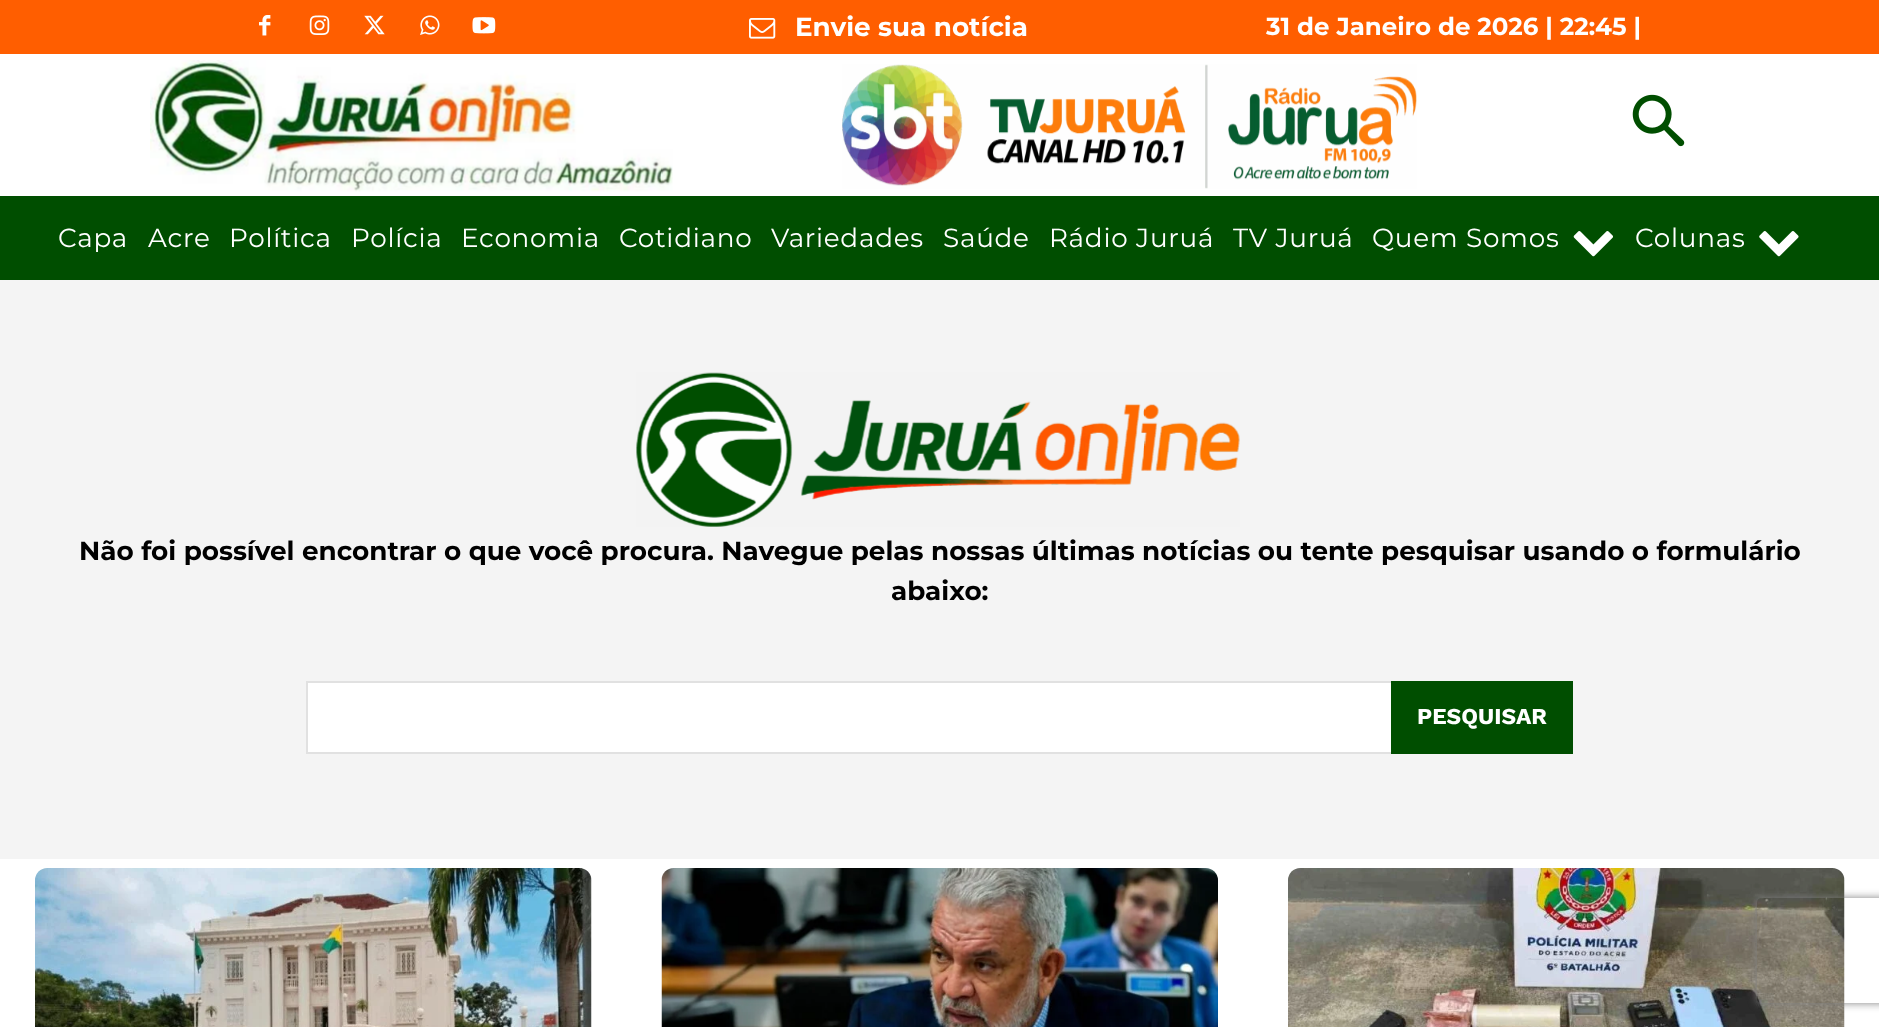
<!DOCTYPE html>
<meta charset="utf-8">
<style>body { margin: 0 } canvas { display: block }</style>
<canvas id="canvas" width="1879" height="1027"></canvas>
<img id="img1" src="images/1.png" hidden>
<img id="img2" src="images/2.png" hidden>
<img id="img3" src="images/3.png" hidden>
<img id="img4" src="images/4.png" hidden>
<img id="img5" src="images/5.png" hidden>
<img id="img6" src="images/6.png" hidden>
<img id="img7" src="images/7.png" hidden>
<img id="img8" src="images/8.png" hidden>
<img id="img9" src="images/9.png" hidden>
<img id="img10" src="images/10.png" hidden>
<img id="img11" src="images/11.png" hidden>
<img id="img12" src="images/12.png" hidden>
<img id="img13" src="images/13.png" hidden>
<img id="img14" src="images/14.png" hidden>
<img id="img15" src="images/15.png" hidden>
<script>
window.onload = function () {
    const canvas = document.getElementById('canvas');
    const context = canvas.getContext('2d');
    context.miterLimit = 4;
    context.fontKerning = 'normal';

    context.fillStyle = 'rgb(255, 255, 255)';
    context.fillRect(0, 0, 1879, 1027);
    context.fillStyle = 'rgb(255, 94, 0)';
    context.fillRect(0, 0, 1879, 54);
    context.drawImage(document.getElementById('img1'), 259, 15, 12, 21);
    context.drawImage(document.getElementById('img2'), 309, 15, 21, 20);
    context.drawImage(document.getElementById('img3'), 364, 15, 21, 20);
    context.drawImage(document.getElementById('img4'), 420, 15, 20, 20);
    context.drawImage(document.getElementById('img5'), 472, 17, 24, 17);
    context.drawImage(document.getElementById('img6'), 749, 18, 27, 21);
    context.drawImage(document.getElementById('img7'), 150, 60, 523, 132);
    context.drawImage(document.getElementById('img8'), 842, 64, 575, 125);
    context.drawImage(document.getElementById('img9'), 1632, 94, 53, 53);
    context.fillStyle = 'rgb(0, 78, 0)';
    context.fillRect(0, 196, 1879, 84);
    context.drawImage(document.getElementById('img10'), 1573, 231, 40, 26);
    context.drawImage(document.getElementById('img11'), 1759, 231, 40, 26);
    context.fillStyle = 'rgb(244, 244, 244)';
    context.fillRect(0, 280, 1879, 579);
    context.drawImage(document.getElementById('img12'), 636, 372, 604, 155);
    context.fillStyle = 'rgb(255, 255, 255)';
    context.fillRect(308, 683, 1083, 69);
    context.strokeStyle = 'rgb(225, 225, 225)';
    context.lineWidth = 2;
    context.strokeRect(307, 682, 1265, 71);
    context.fillStyle = 'rgb(0, 78, 0)';
    context.fillRect(1391, 681, 182, 73);
    context.drawImage(document.getElementById('img13'), 35, 868, 557, 159);
    context.drawImage(document.getElementById('img14'), 661, 868, 557, 159);
    context.drawImage(document.getElementById('img15'), 1288, 868, 557, 159);
    context.save();
    context.beginPath();
    context.moveTo(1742, 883);
    context.lineTo(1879, 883);
    context.lineTo(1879, 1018);
    context.lineTo(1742, 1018);
    context.closePath();
    context.moveTo(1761, 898);
    context.lineTo(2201, 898);
    context.bezierCurveTo(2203, 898, 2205, 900, 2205, 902);
    context.lineTo(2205, 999);
    context.bezierCurveTo(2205, 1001, 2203, 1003, 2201, 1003);
    context.lineTo(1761, 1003);
    context.bezierCurveTo(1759, 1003, 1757, 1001, 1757, 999);
    context.lineTo(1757, 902);
    context.bezierCurveTo(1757, 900, 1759, 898, 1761, 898);
    context.closePath();
    context.clip('evenodd');
    context.fillStyle = 'rgb(128, 128, 128)';
    context.filter = 'blur(4.5px)';
    context.beginPath();
    context.roundRect(1757, 898, 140, 105, 4);
    context.fill();
    context.filter = 'none';
    context.restore();
    context.font = '100 26.25px Montserrat';
    context.fillStyle = 'rgb(255, 255, 255)';
    context.fillText('Envie sua notícia', 795, 36);
    context.font = '100 24.5px Montserrat';
    context.fillText('31 de Janeiro de 2026 | 22:45 |', 1266, 35);
    context.letterSpacing = '0.75px';
    context.font = '100 26.25px "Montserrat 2"';
    context.fillText('Capa', 58, 247);
    context.fillText('Acre', 148, 247);
    context.fillText('Política', 229, 247);
    context.fillText('Polícia', 351, 247);
    context.fillText('Economia', 461, 247);
    context.fillText('Cotidiano', 619, 247);
    context.fillText('Variedades', 771, 247);
    context.fillText('Saúde', 943, 247);
    context.fillText('Rádio Juruá', 1049, 247);
    context.fillText('TV Juruá', 1233, 247);
    context.fillText('Quem Somos', 1372, 247);
    context.fillText('Colunas', 1635, 247);
    context.letterSpacing = '0px';
    context.font = '100 26.25px Montserrat';
    context.fillStyle = 'rgb(0, 0, 0)';
    context.fillText('Não foi possível encontrar o que você procura. Navegue pelas nossas últimas notícias ou tente pesquisar usando o formulário', 79, 560);
    context.fillText('abaixo:', 891, 600);
    context.font = 'bold 22.75px Work Sans';
    context.fillStyle = 'rgb(255, 255, 255)';
    context.fillText('PESQUISAR', 1417, 724);
};
</script>
